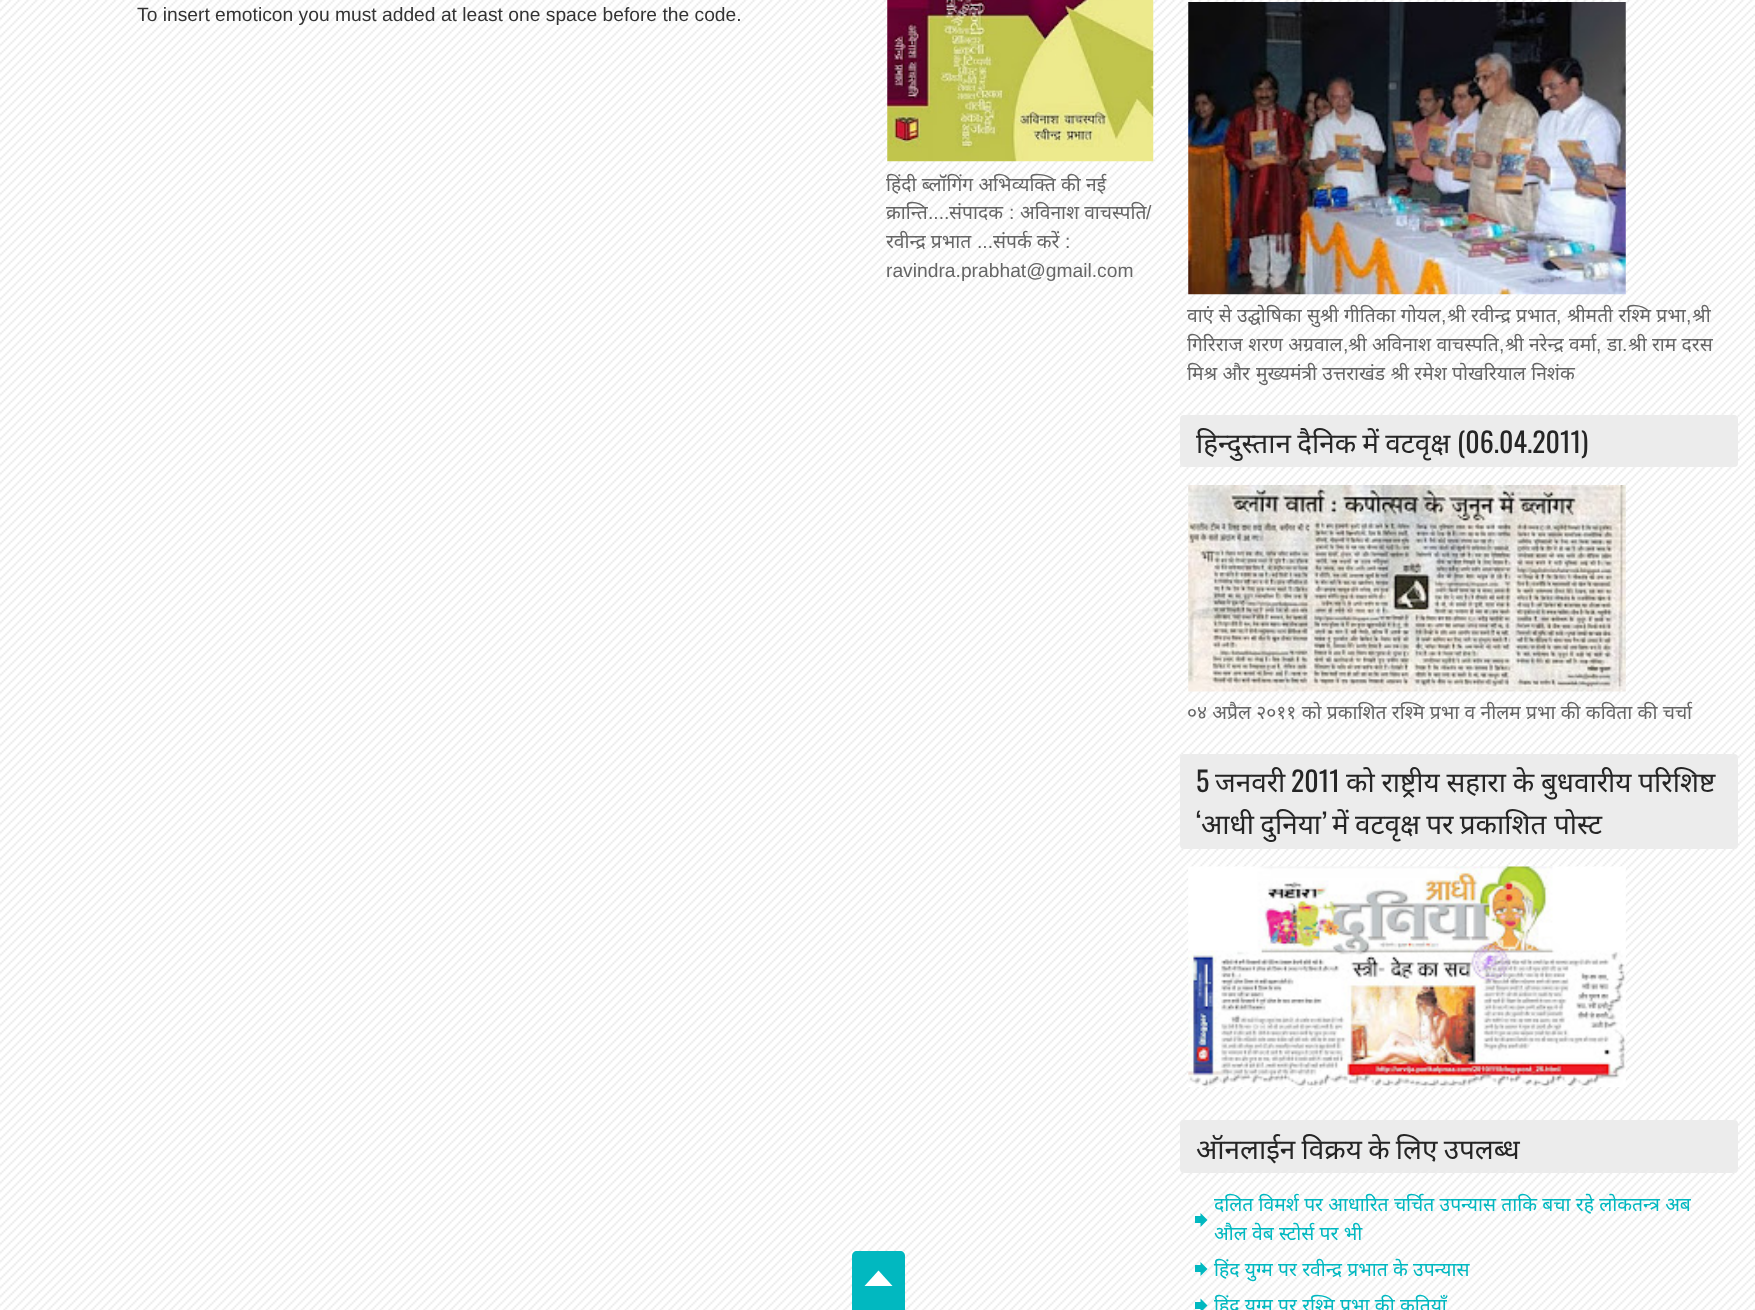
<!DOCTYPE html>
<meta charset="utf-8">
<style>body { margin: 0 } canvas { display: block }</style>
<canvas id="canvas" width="1755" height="1310"></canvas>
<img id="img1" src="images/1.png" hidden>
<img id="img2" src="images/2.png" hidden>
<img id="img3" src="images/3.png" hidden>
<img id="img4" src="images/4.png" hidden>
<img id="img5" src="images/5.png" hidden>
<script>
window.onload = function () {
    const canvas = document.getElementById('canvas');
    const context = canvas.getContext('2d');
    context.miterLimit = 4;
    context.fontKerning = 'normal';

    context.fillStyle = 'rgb(255, 255, 255)';
    context.fillRect(0, 0, 1755, 1310);
    context.drawImage(document.getElementById('img1'), 0, 0, 1755, 1310);
    context.drawImage(document.getElementById('img2'), 887, 0, 267, 162);
    context.drawImage(document.getElementById('img3'), 1188, 2, 438, 293);
    context.fillStyle = 'rgb(236, 236, 236)';
    context.beginPath();
    context.roundRect(1180, 415, 558, 52, 4);
    context.fill();
    context.drawImage(document.getElementById('img4'), 1188, 485, 438, 207);
    context.beginPath();
    context.roundRect(1180, 754, 558, 95, 4);
    context.fill();
    context.drawImage(document.getElementById('img5'), 1188, 866, 438, 221);
    context.beginPath();
    context.roundRect(1180, 1120, 558, 53, 4);
    context.fill();
    context.fillStyle = 'rgb(1, 184, 192)';
    context.fillRect(1195, 1216, 7, 7);
    context.beginPath();
    context.moveTo(1200.5, 1227);
    context.lineTo(1200.5, 1213);
    context.lineTo(1207.5, 1220);
    context.closePath();
    context.fill();
    context.fillRect(1195, 1265, 7, 7);
    context.beginPath();
    context.moveTo(1200.5, 1276);
    context.lineTo(1200.5, 1262);
    context.lineTo(1207.5, 1269);
    context.closePath();
    context.fill();
    context.fillRect(1195, 1302, 7, 7);
    context.beginPath();
    context.moveTo(1200.5, 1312.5);
    context.lineTo(1200.5, 1298.5);
    context.lineTo(1207.5, 1305.5);
    context.closePath();
    context.fill();
    context.beginPath();
    context.moveTo(857, 1251);
    context.lineTo(900, 1251);
    context.bezierCurveTo(903, 1251, 905, 1253, 905, 1256);
    context.lineTo(905, 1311);
    context.lineTo(852, 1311);
    context.lineTo(852, 1256);
    context.bezierCurveTo(852, 1253, 854, 1251, 857, 1251);
    context.closePath();
    context.fill();
    context.fillStyle = 'rgb(255, 255, 255)';
    context.beginPath();
    context.moveTo(892.5, 1286);
    context.lineTo(864.5, 1286);
    context.lineTo(878.5, 1270.5);
    context.closePath();
    context.fill();
    context.font = '19.25px Liberation Sans';
    context.fillStyle = 'rgb(51, 51, 51)';
    context.fillText('To insert emoticon you must added at least one space before the code.', 137, 21);
    context.wordSpacing = '0.3px';
    context.font = '19.25px Noto Sans';
    context.fillStyle = 'rgb(102, 102, 102)';
    context.fillText('हिंदी ब्लॉगिंग अभिव्यक्ति की नई', 886, 191);
    context.wordSpacing = '0px';
    context.fillText('क्रान्ति', 886, 219);
    context.font = '19.25px Liberation Sans';
    context.fillText('....', 928, 219);
    context.font = '19.25px Noto Sans';
    context.fillText('संपादक', 949, 219);
    context.font = '19.25px Liberation Sans';
    context.fillText(':', 1009, 219);
    context.font = '19.25px Noto Sans';
    context.fillText('अविनाश वाचस्पति', 1020, 219);
    context.font = '19.25px Liberation Sans';
    context.fillText('/', 1146, 219);
    context.font = '19.25px Noto Sans';
    context.fillText('रवीन्द्र प्रभात', 886, 248);
    context.font = '19.25px Liberation Sans';
    context.fillText('...', 977, 248);
    context.font = '19.25px Noto Sans';
    context.fillText('संपर्क करें', 993, 248);
    context.font = '19.25px Liberation Sans';
    context.fillText(':', 1065, 248);
    context.fillText('ravindra.prabhat@gmail.com', 886, 277);
    context.wordSpacing = '0.3px';
    context.font = '19.25px Noto Sans';
    context.fillText('वाएं से उद्घोषिका सुश्री गीतिका गोयल', 1187, 322);
    context.fillText('श्रीमती रश्मि प्रभा', 1567, 322);
    context.wordSpacing = '0px';
    context.font = '19.25px Liberation Sans';
    context.fillText(',', 1441, 322);
    context.wordSpacing = '0.3px';
    context.font = '19.25px Noto Sans';
    context.fillText('श्री रवीन्द्र प्रभात', 1447, 322);
    context.wordSpacing = '0px';
    context.font = '19.25px Liberation Sans';
    context.fillText(',', 1556, 322);
    context.fillText(',', 1686, 322);
    context.font = '19.25px Noto Sans';
    context.fillText('श्री', 1692, 322);
    context.wordSpacing = '0.3px';
    context.fillText('गिरिराज शरण अग्रवाल', 1187, 351);
    context.wordSpacing = '0px';
    context.fillText('डा', 1607, 351);
    context.font = '19.25px Liberation Sans';
    context.fillText(',', 1343, 351);
    context.wordSpacing = '0.3px';
    context.font = '19.25px Noto Sans';
    context.fillText('श्री अविनाश वाचस्पति', 1348, 351);
    context.wordSpacing = '0px';
    context.font = '19.25px Liberation Sans';
    context.fillText(',', 1499, 351);
    context.wordSpacing = '0.3px';
    context.font = '19.25px Noto Sans';
    context.fillText('श्री नरेन्द्र वर्मा', 1505, 351);
    context.wordSpacing = '0px';
    context.font = '19.25px Liberation Sans';
    context.fillText(',', 1596, 351);
    context.fillText('.', 1622, 351);
    context.wordSpacing = '0.3px';
    context.font = '19.25px Noto Sans';
    context.fillText('श्री राम दरस', 1628, 351);
    context.fillText('मिश्र और', 1187, 380);
    context.fillText('मुख्यमंत्री उत्तराखंड श्री रमेश पोखरियाल निशंक', 1256, 380);
    context.wordSpacing = '-1px';
    context.font = '27.9px Noto Sans';
    context.fillStyle = 'rgb(37, 37, 37)';
    context.fillText('हिन्‍दुस्‍तान दैनिक में वटवृक्ष', 1196, 453);
    context.wordSpacing = '0px';
    context.font = '27.9px Oswald';
    context.fillText('(06.04.2011)', 1457, 453);
    context.wordSpacing = '0.3px';
    context.font = '19.25px Noto Sans';
    context.fillStyle = 'rgb(102, 102, 102)';
    context.fillText('०४ अप्रैल २०११ को प्रकाशित रश्मि प्रभा व नीलम प्रभा की कविता की चर्चा', 1187, 719);
    context.wordSpacing = '0px';
    context.font = '27.9px Oswald';
    context.fillStyle = 'rgb(37, 37, 37)';
    context.fillText('5', 1196, 792);
    context.font = '27.9px Noto Sans';
    context.fillText('जनवरी', 1215, 792);
    context.font = '27.9px Oswald';
    context.fillText('2011', 1291, 792);
    context.wordSpacing = '-0.5px';
    context.font = '27.9px Noto Sans';
    context.fillText('को राष्ट्रीय सहारा के बुधवारीय परिशिष्ट', 1346, 792);
    context.wordSpacing = '0px';
    context.font = '27.9px Oswald';
    context.fillText('‘', 1196, 834);
    context.wordSpacing = '-1px';
    context.font = '27.9px Noto Sans';
    context.fillText('आधी दुनिया', 1201, 834);
    context.wordSpacing = '0px';
    context.fillText('पोस्ट', 1554, 834);
    context.font = '27.9px Oswald';
    context.fillText('’', 1322, 834);
    context.wordSpacing = '-1px';
    context.font = '27.9px Noto Sans';
    context.fillText('में वटवृक्ष पर प्रकाशित', 1332, 834);
    context.fillText('ऑनलाईन विक्रय के लिए उपलब्ध', 1196, 1159);
    context.wordSpacing = '0.3px';
    context.font = '19.25px Noto Sans';
    context.fillStyle = 'rgb(1, 184, 192)';
    context.fillText('दलित विमर्श पर आधारित चर्चित उपन्यास ताकि बचा रहे लोकतन्त्र अब', 1214, 1211);
    context.fillText('औल वेब स्टोर्स पर भी', 1214, 1240);
    context.fillText('हिंद युग्म पर रवीन्द्र प्रभात के उपन्यास', 1214, 1276);
    context.fillText('हिंद युग्म पर रश्मि प्रभा की कृतियाँ', 1214, 1312);
};
</script>
